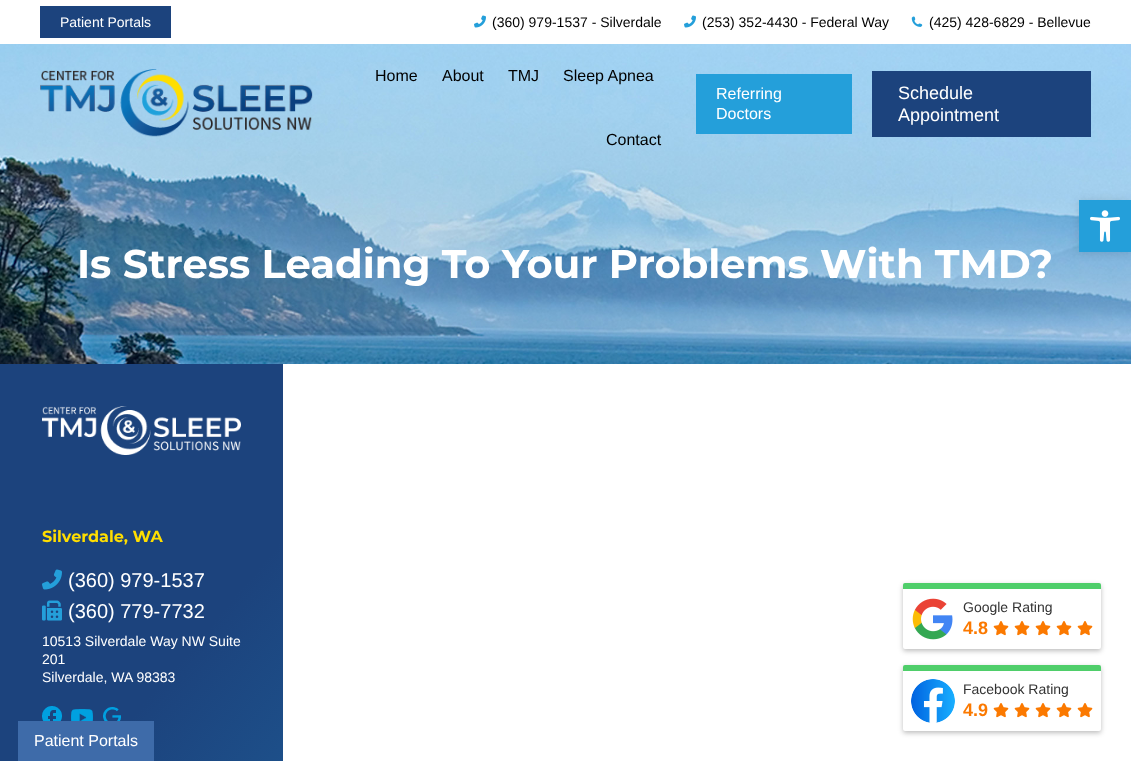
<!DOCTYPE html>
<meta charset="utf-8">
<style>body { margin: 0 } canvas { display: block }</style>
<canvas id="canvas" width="1131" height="761"></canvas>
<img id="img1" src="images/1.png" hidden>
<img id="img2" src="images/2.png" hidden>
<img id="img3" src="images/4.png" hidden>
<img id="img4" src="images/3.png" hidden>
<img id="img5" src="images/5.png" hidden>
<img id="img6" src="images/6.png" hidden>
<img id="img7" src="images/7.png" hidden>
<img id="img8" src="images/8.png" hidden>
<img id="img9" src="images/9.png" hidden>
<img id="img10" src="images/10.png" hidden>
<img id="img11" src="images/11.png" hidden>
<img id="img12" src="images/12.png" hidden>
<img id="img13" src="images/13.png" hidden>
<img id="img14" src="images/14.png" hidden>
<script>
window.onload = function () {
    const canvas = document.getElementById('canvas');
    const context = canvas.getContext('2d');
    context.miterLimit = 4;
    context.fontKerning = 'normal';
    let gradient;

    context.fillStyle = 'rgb(255, 255, 255)';
    context.fillRect(0, 0, 1131, 761);
    context.fillStyle = 'rgb(28, 67, 125)';
    context.fillRect(40, 6, 131, 32);
    context.drawImage(document.getElementById('img1'), 474, 15, 12, 13);
    context.drawImage(document.getElementById('img1'), 684, 15, 12, 13);
    context.drawImage(document.getElementById('img2'), 911, 16, 12, 11);
    context.drawImage(document.getElementById('img3'), 0, 44, 1131, 320);
    context.drawImage(document.getElementById('img4'), 40, 69, 273, 68);
    context.fillStyle = 'rgb(36, 159, 218)';
    context.fillRect(696, 74, 156, 60);
    context.fillStyle = 'rgb(28, 67, 125)';
    context.fillRect(872, 71, 219, 66);
    gradient = context.createLinearGradient(-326, 748, 768, 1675);
    gradient.addColorStop(0.23, 'rgb(28, 67, 125)');
    gradient.addColorStop(1, 'rgb(36, 159, 218)');
    context.fillStyle = gradient;
    context.fillRect(0, 364, 283, 397);
    context.drawImage(document.getElementById('img5'), 42, 406, 199, 49);
    context.drawImage(document.getElementById('img6'), 42, 569, 20, 21);
    context.drawImage(document.getElementById('img7'), 42, 600, 20, 21);
    context.drawImage(document.getElementById('img8'), 42, 706, 20, 15);
    context.drawImage(document.getElementById('img9'), 71, 709, 22, 12);
    context.drawImage(document.getElementById('img10'), 103, 707, 18, 14);
    context.fillStyle = 'rgba(0, 0, 0, 0.26)';
    context.filter = 'blur(2.5px)';
    context.beginPath();
    context.roundRect(903, 585, 198, 66, 2);
    context.fill();
    context.filter = 'none';
    context.fillStyle = 'rgb(79, 206, 106)';
    context.beginPath();
    context.roundRect(903, 583, 198, 6, [2, 2, 0, 0]);
    context.fill();
    context.fillStyle = 'rgb(255, 255, 255)';
    context.beginPath();
    context.roundRect(903, 589, 198, 60, [0, 0, 2, 2]);
    context.fill();
    context.drawImage(document.getElementById('img11'), 912, 598, 41, 42);
    context.drawImage(document.getElementById('img12'), 993, 621, 16, 15);
    context.drawImage(document.getElementById('img12'), 1014, 621, 16, 15);
    context.drawImage(document.getElementById('img12'), 1035, 621, 16, 15);
    context.drawImage(document.getElementById('img12'), 1056, 621, 16, 15);
    context.drawImage(document.getElementById('img12'), 1077, 621, 16, 15);
    context.fillStyle = 'rgba(0, 0, 0, 0.26)';
    context.filter = 'blur(2.5px)';
    context.beginPath();
    context.roundRect(903, 667, 198, 66, 2);
    context.fill();
    context.filter = 'none';
    context.fillStyle = 'rgb(79, 206, 106)';
    context.beginPath();
    context.roundRect(903, 665, 198, 6, [2, 2, 0, 0]);
    context.fill();
    context.fillStyle = 'rgb(255, 255, 255)';
    context.beginPath();
    context.roundRect(903, 671, 198, 60, [0, 0, 2, 2]);
    context.fill();
    context.drawImage(document.getElementById('img13'), 911, 679, 44, 44);
    context.drawImage(document.getElementById('img12'), 993, 703, 16, 15);
    context.drawImage(document.getElementById('img12'), 1014, 703, 16, 15);
    context.drawImage(document.getElementById('img12'), 1035, 703, 16, 15);
    context.drawImage(document.getElementById('img12'), 1056, 703, 16, 15);
    context.drawImage(document.getElementById('img12'), 1077, 703, 16, 15);
    context.fillStyle = 'rgba(0, 0, 0, 0.1)';
    context.filter = 'blur(5px)';
    context.beginPath();
    context.rect(1079, 200, 52, 52);
    context.fill();
    context.filter = 'none';
    context.fillStyle = 'rgb(36, 159, 218)';
    context.fillRect(1079, 200, 52, 52);
    context.drawImage(document.getElementById('img14'), 1090, 210, 30, 32);
    context.fillStyle = 'rgb(62, 107, 169)';
    context.fillRect(18, 721, 136, 40);
    context.font = '14px Liberation Sans';
    context.fillStyle = 'rgb(255, 255, 255)';
    context.fillText('Patient Portals', 60, 27);
    context.fillStyle = 'rgb(0, 0, 0)';
    context.fillText('(360) 979-1537 - Silverdale', 492, 27);
    context.fillText('(253) 352-4430 - Federal Way', 702, 27);
    context.fillText('(425) 428-6829 - Bellevue', 929, 27);
    context.font = '16px Liberation Sans';
    context.fillText('Home', 375, 81);
    context.fillText('About', 442, 81);
    context.fillText('TMJ', 508, 81);
    context.fillText('Sleep Apnea', 563, 81);
    context.fillText('Contact', 606, 145);
    context.fillStyle = 'rgb(255, 255, 255)';
    context.fillText('Referring', 716, 99);
    context.fillText('Doctors', 716, 119);
    context.font = '18px Liberation Sans';
    context.fillText('Schedule', 898, 99);
    context.fillText('Appointment', 898, 121);
    context.font = 'bold 40px Montserrat';
    context.fillText('Is Stress Leading To Your Problems With TMD?', 77, 278);
    context.font = 'bold 16px Montserrat';
    context.fillStyle = 'rgb(255, 222, 0)';
    context.fillText('Silverdale, WA', 42, 542);
    context.font = '20px Liberation Sans';
    context.fillStyle = 'rgb(255, 255, 255)';
    context.fillText('(360) 979-1537', 68, 587);
    context.fillText('(360) 779-7732', 68, 618);
    context.font = '14px Liberation Sans';
    context.fillText('10513 Silverdale Way NW Suite', 42, 646);
    context.fillText('201', 42, 664);
    context.fillText('Silverdale, WA 98383', 42, 682);
    context.fillStyle = 'rgb(51, 51, 51)';
    context.fillText('Google Rating', 963, 612);
    context.font = 'bold 18px Liberation Sans';
    context.fillStyle = 'rgb(251, 121, 0)';
    context.fillText('4.8', 963, 634);
    context.font = '14px Liberation Sans';
    context.fillStyle = 'rgb(51, 51, 51)';
    context.fillText('Facebook Rating', 963, 694);
    context.font = 'bold 18px Liberation Sans';
    context.fillStyle = 'rgb(251, 121, 0)';
    context.fillText('4.9', 963, 716);
    context.font = '16px Liberation Sans';
    context.fillStyle = 'rgb(255, 255, 255)';
    context.fillText('Patient Portals', 34, 746);
};
</script>
